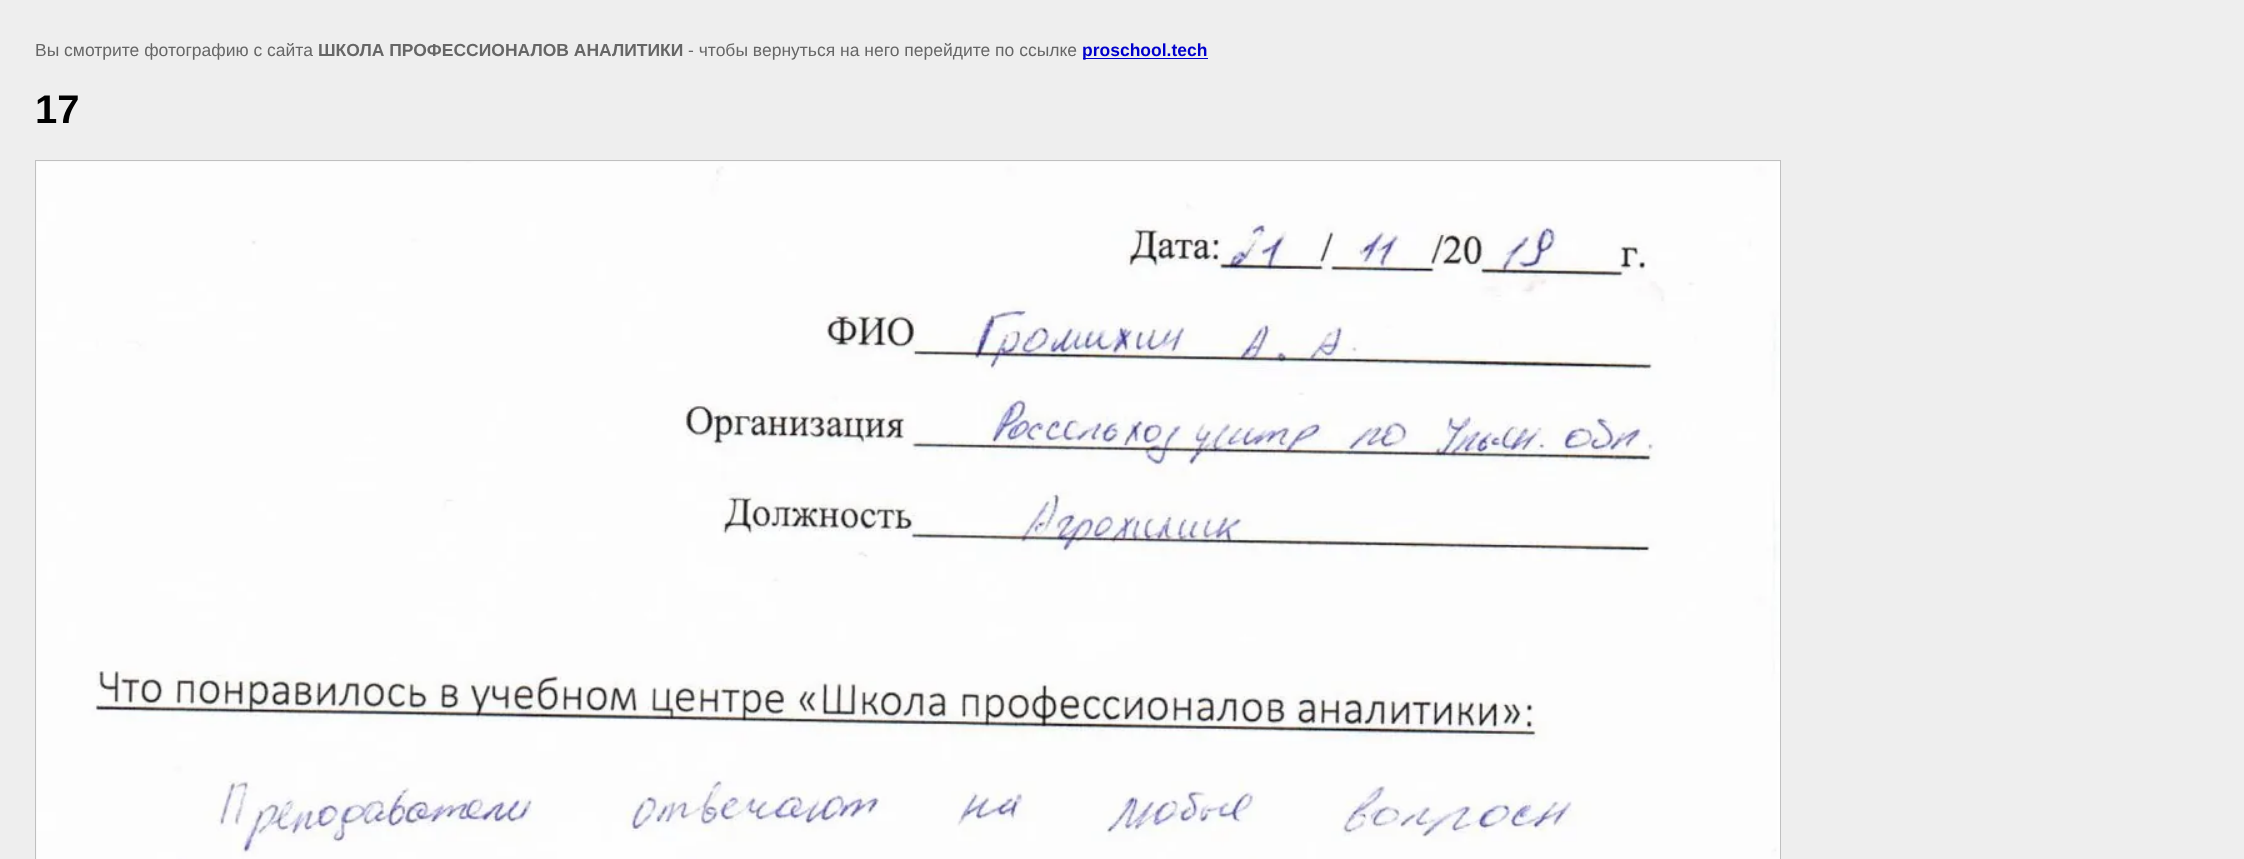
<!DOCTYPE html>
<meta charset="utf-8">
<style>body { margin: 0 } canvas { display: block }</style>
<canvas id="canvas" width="2244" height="859"></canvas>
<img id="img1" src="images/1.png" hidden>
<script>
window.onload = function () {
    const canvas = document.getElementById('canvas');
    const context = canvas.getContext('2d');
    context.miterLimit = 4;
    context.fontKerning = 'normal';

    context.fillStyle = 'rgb(238, 238, 238)';
    context.fillRect(0, 0, 2244, 859);
    context.fillStyle = 'rgb(0, 0, 204)';
    context.fillRect(1083, 58, 125, 1);
    context.strokeStyle = 'rgb(192, 192, 192)';
    context.strokeRect(35.5, 160.5, 1745, 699);
    context.drawImage(document.getElementById('img1'), 36, 161, 1744, 698);
    context.font = '17.5px Liberation Sans';
    context.fillStyle = 'rgb(102, 102, 102)';
    context.fillText('Вы смотрите фотографию с сайта', 35, 56);
    context.font = 'bold 17.5px Liberation Sans';
    context.fillText('ШКОЛА ПРОФЕССИОНАЛОВ АНАЛИТИКИ', 318, 56);
    context.font = '17.5px Liberation Sans';
    context.fillText('- чтобы вернуться на него перейдите по ссылке', 688, 56);
    context.font = 'bold 17.5px Liberation Sans';
    context.fillStyle = 'rgb(0, 0, 204)';
    context.fillText('proschool.tech', 1082, 56);
    context.font = 'bold 40px Liberation Sans';
    context.fillStyle = 'rgb(0, 0, 0)';
    context.fillText('17', 35, 123);
};
</script>
